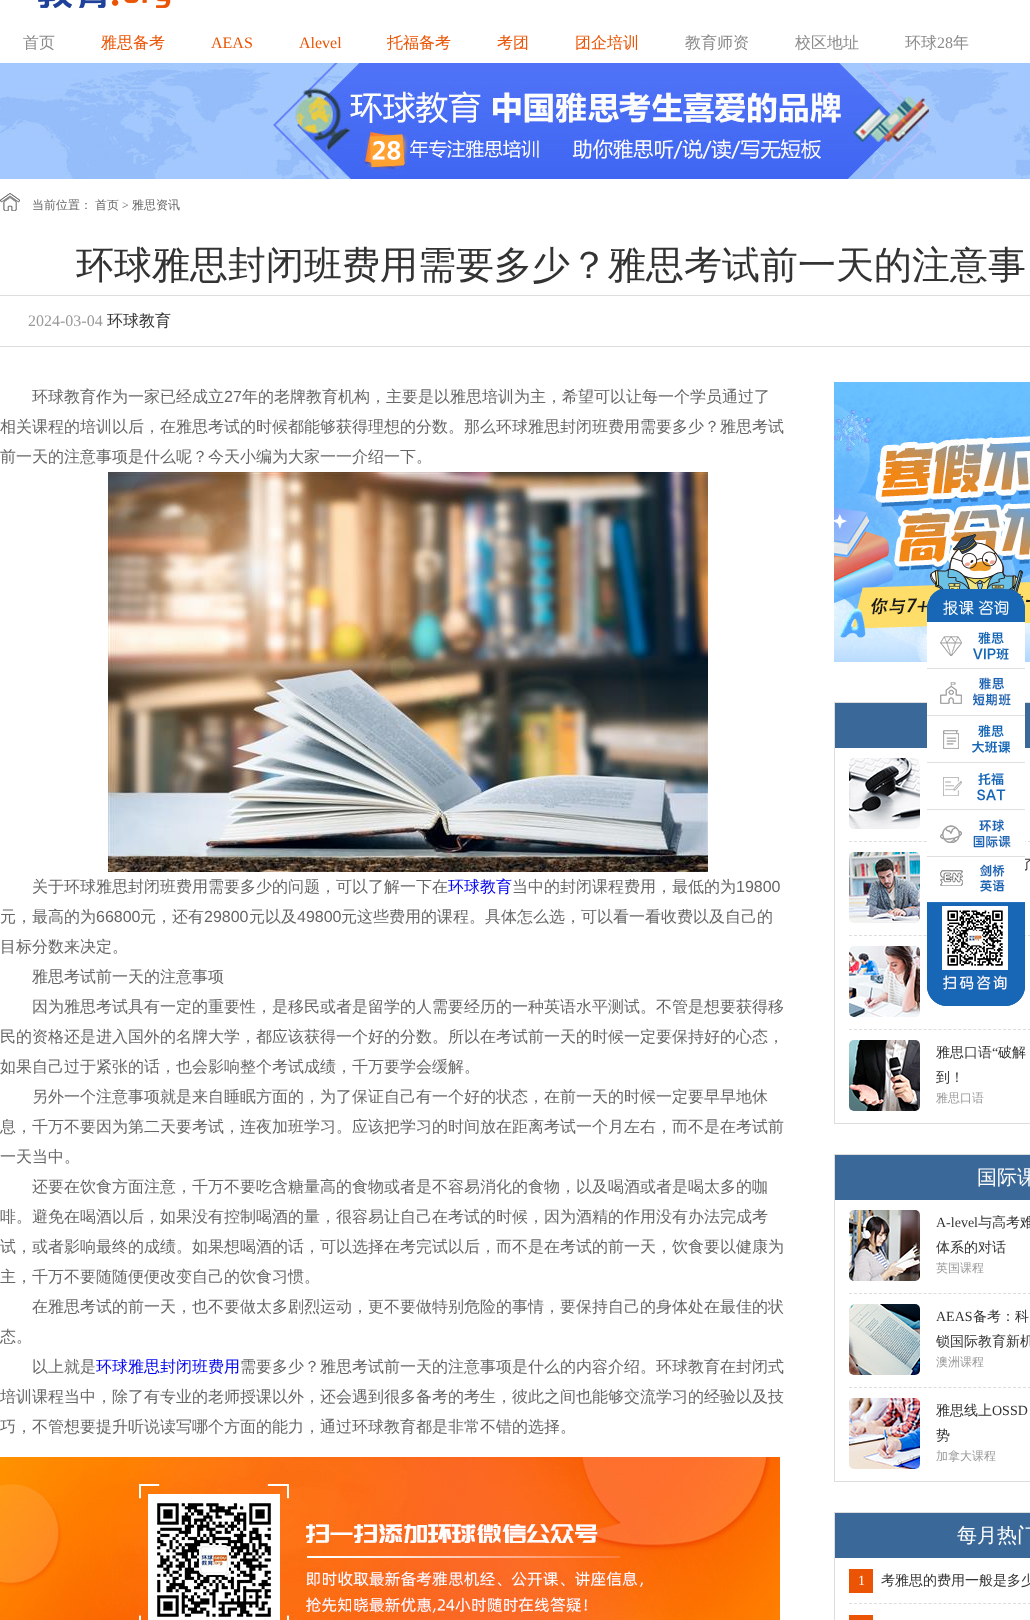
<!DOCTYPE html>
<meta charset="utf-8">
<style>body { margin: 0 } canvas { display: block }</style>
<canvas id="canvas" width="1030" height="1620"></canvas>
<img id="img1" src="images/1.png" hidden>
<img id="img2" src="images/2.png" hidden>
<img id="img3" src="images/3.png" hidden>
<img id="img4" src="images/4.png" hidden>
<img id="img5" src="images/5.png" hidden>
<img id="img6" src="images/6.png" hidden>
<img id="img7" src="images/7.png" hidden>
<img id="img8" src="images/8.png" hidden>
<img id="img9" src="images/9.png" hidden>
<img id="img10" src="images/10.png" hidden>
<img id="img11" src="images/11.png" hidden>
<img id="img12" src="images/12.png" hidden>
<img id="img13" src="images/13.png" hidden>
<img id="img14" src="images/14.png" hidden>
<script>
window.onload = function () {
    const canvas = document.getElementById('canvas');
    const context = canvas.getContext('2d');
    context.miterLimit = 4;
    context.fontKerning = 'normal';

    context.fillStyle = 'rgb(255, 255, 255)';
    context.fillRect(0, 0, 1030, 1620);
    context.drawImage(document.getElementById('img1'), 38, 0, 133, 8);
    context.drawImage(document.getElementById('img2'), 0, 63, 1030, 116);
    context.drawImage(document.getElementById('img3'), 0, 193, 20, 18);
    context.fillStyle = 'rgb(221, 221, 221)';
    context.fillRect(0, 295, 1030, 1);
    context.fillRect(0, 346, 1030, 1);
    context.drawImage(document.getElementById('img4'), 108, 472, 600, 400);
    context.drawImage(document.getElementById('img5'), 0, 1457, 780, 163);
    context.drawImage(document.getElementById('img6'), 834, 382, 196, 280);
    context.strokeStyle = 'rgb(221, 221, 221)';
    context.strokeRect(834.5, 702.5, 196, 421);
    context.fillStyle = 'rgb(58, 105, 153)';
    context.fillRect(835, 703, 195, 45);
    context.beginPath();
    context.moveTo(849, 841.5);
    context.lineTo(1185, 841.5);
    context.setLineDash([3, 1.97]);
    context.stroke();
    context.drawImage(document.getElementById('img7'), 849, 758, 71, 71);
    context.beginPath();
    context.moveTo(849, 935.5);
    context.lineTo(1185, 935.5);
    context.stroke();
    context.drawImage(document.getElementById('img8'), 849, 852, 71, 71);
    context.beginPath();
    context.moveTo(849, 1029.5);
    context.lineTo(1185, 1029.5);
    context.stroke();
    context.drawImage(document.getElementById('img9'), 849, 946, 71, 71);
    context.drawImage(document.getElementById('img10'), 849, 1040, 71, 71);
    context.setLineDash([]);
    context.strokeRect(834.5, 1154.5, 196, 327);
    context.fillRect(835, 1155, 195, 45);
    context.beginPath();
    context.moveTo(849, 1293.5);
    context.lineTo(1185, 1293.5);
    context.setLineDash([3, 1.97]);
    context.stroke();
    context.drawImage(document.getElementById('img11'), 849, 1210, 71, 71);
    context.beginPath();
    context.moveTo(849, 1387.5);
    context.lineTo(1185, 1387.5);
    context.stroke();
    context.drawImage(document.getElementById('img12'), 849, 1304, 71, 71);
    context.drawImage(document.getElementById('img13'), 849, 1398, 71, 71);
    context.setLineDash([]);
    context.strokeRect(834.5, 1512.5, 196, 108);
    context.fillRect(835, 1513, 195, 45);
    context.beginPath();
    context.moveTo(849, 1603.5);
    context.lineTo(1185, 1603.5);
    context.setLineDash([3, 1.97]);
    context.stroke();
    context.fillStyle = 'rgb(234, 84, 4)';
    context.fillRect(849, 1569, 24, 24);
    context.fillRect(849, 1615, 24, 5);
    context.font = '500 16px WenQuanYi Zen Hei';
    context.fillStyle = 'rgb(138, 138, 138)';
    context.fillText('首页', 23, 48);
    context.fillStyle = 'rgb(234, 84, 4)';
    context.fillText('雅思备考', 101, 48);
    context.font = '16px Liberation Serif';
    context.fillText('AEAS', 211, 48);
    context.fillText('Alevel', 299, 48);
    context.font = '500 16px WenQuanYi Zen Hei';
    context.fillText('托福备考', 387, 48);
    context.fillText('考团', 497, 48);
    context.fillText('团企培训', 575, 48);
    context.fillStyle = 'rgb(138, 138, 138)';
    context.fillText('教育师资', 685, 48);
    context.fillText('校区地址', 795, 48);
    context.fillText('环球', 905, 48);
    context.font = '16px Liberation Serif';
    context.fillText('28', 937, 48);
    context.font = '500 16px WenQuanYi Zen Hei';
    context.fillText('年', 953, 48);
    context.font = '500 12px WenQuanYi Zen Hei';
    context.fillStyle = 'rgb(102, 102, 102)';
    context.fillText('当前位置：', 32, 209);
    context.fillText('首页', 95, 209);
    context.font = '12px Liberation Serif';
    context.fillText('>', 122, 209);
    context.font = '500 12px WenQuanYi Zen Hei';
    context.fillText('雅思资讯', 132, 209);
    context.font = '500 38px WenQuanYi Zen Hei';
    context.fillStyle = 'rgb(51, 51, 51)';
    context.fillText('环球雅思封闭班费用需要多少？雅思考试前一天的注意事', 76, 278);
    context.font = '16px Liberation Serif';
    context.fillStyle = 'rgb(153, 153, 153)';
    context.fillText('2024-03-04', 28, 326);
    context.font = '500 16px WenQuanYi Zen Hei';
    context.fillStyle = 'rgb(51, 51, 51)';
    context.fillText('环球教育', 107, 326);
    context.fillStyle = 'rgb(102, 102, 102)';
    context.fillText('环球教育作为一家已经成立', 32, 402);
    context.font = '16px Liberation Sans';
    context.fillText('27', 224, 402);
    context.font = '500 16px WenQuanYi Zen Hei';
    context.fillText('年的老牌教育机构，主要是以雅思培训为主，希望可以让每一个学员通过了', 242, 402);
    context.fillText('相关课程的培训以后，在雅思考试的时候都能够获得理想的分数。那么环球雅思封闭班费用需要多少？雅思考试', 0, 432);
    context.fillText('前一天的注意事项是什么呢？今天小编为大家一一介绍一下。', 0, 462);
    context.fillText('关于环球雅思封闭班费用需要多少的问题，可以了解一下在', 32, 892);
    context.fillStyle = 'rgb(0, 0, 238)';
    context.fillText('环球教育', 448, 892);
    context.fillStyle = 'rgb(102, 102, 102)';
    context.fillText('当中的封闭课程费用，最低的为', 512, 892);
    context.font = '16px Liberation Sans';
    context.fillText('19800', 736, 892);
    context.font = '500 16px WenQuanYi Zen Hei';
    context.fillText('元，最高的为', 0, 922);
    context.font = '16px Liberation Sans';
    context.fillText('66800', 96, 922);
    context.font = '500 16px WenQuanYi Zen Hei';
    context.fillText('元，还有', 140, 922);
    context.font = '16px Liberation Sans';
    context.fillText('29800', 204, 922);
    context.font = '500 16px WenQuanYi Zen Hei';
    context.fillText('元以及', 249, 922);
    context.font = '16px Liberation Sans';
    context.fillText('49800', 297, 922);
    context.font = '500 16px WenQuanYi Zen Hei';
    context.fillText('元这些费用的课程。具体怎么选，可以看一看收费以及自己的', 341, 922);
    context.fillText('目标分数来决定。', 0, 952);
    context.fillText('雅思考试前一天的注意事项', 32, 982);
    context.fillText('因为雅思考试具有一定的重要性，是移民或者是留学的人需要经历的一种英语水平测试。不管是想要获得移', 32, 1012);
    context.fillText('民的资格还是进入国外的名牌大学，都应该获得一个好的分数。所以在考试前一天的时候一定要保持好的心态，', 0, 1042);
    context.fillText('如果自己过于紧张的话，也会影响整个考试成绩，千万要学会缓解。', 0, 1072);
    context.fillText('另外一个注意事项就是来自睡眠方面的，为了保证自己有一个好的状态，在前一天的时候一定要早早地休', 32, 1102);
    context.fillText('息，千万不要因为第二天要考试，连夜加班学习。应该把学习的时间放在距离考试一个月左右，而不是在考试前', 0, 1132);
    context.fillText('一天当中。', 0, 1162);
    context.fillText('还要在饮食方面注意，千万不要吃含糖量高的食物或者是不容易消化的食物，以及喝酒或者是喝太多的咖', 32, 1192);
    context.fillText('啡。避免在喝酒以后，如果没有控制喝酒的量，很容易让自己在考试的时候，因为酒精的作用没有办法完成考', 0, 1222);
    context.fillText('试，或者影响最终的成绩。如果想喝酒的话，可以选择在考完试以后，而不是在考试的前一天，饮食要以健康为', 0, 1252);
    context.fillText('主，千万不要随随便便改变自己的饮食习惯。', 0, 1282);
    context.fillText('在雅思考试的前一天，也不要做太多剧烈运动，更不要做特别危险的事情，要保持自己的身体处在最佳的状', 32, 1312);
    context.fillText('态。', 0, 1342);
    context.fillText('以上就是', 32, 1372);
    context.fillStyle = 'rgb(0, 0, 238)';
    context.fillText('环球雅思封闭班费用', 96, 1372);
    context.fillStyle = 'rgb(102, 102, 102)';
    context.fillText('需要多少？雅思考试前一天的注意事项是什么的内容介绍。环球教育在封闭式', 240, 1372);
    context.fillText('培训课程当中，除了有专业的老师授课以外，还会遇到很多备考的考生，彼此之间也能够交流学习的经验以及技', 0, 1402);
    context.fillText('巧，不管想要提升听说读写哪个方面的能力，通过环球教育都是非常不错的选择。', 0, 1432);
    context.font = '500 14px WenQuanYi Zen Hei';
    context.fillStyle = 'rgb(51, 51, 51)';
    context.fillText('了', 1020, 869);
    context.fillText('雅思口语', 936, 1057);
    context.font = '14px Liberation Serif';
    context.fillText('“', 992, 1057);
    context.font = '500 14px WenQuanYi Zen Hei';
    context.fillText('破解', 998, 1057);
    context.fillText('到！', 936, 1082);
    context.font = '500 12px WenQuanYi Zen Hei';
    context.fillStyle = 'rgb(153, 153, 153)';
    context.fillText('雅思口语', 936, 1102);
    context.font = '500 20px WenQuanYi Zen Hei';
    context.fillStyle = 'rgb(255, 255, 255)';
    context.fillText('国际课', 977, 1184);
    context.font = '14px Liberation Serif';
    context.fillStyle = 'rgb(51, 51, 51)';
    context.fillText('A-level', 936, 1227);
    context.font = '500 14px WenQuanYi Zen Hei';
    context.fillText('与高考难', 978, 1227);
    context.fillText('体系的对话', 936, 1252);
    context.font = '500 12px WenQuanYi Zen Hei';
    context.fillStyle = 'rgb(153, 153, 153)';
    context.fillText('英国课程', 936, 1272);
    context.font = '14px Liberation Serif';
    context.fillStyle = 'rgb(51, 51, 51)';
    context.fillText('AEAS', 936, 1321);
    context.font = '500 14px WenQuanYi Zen Hei';
    context.fillText('备考：科', 973, 1321);
    context.fillText('锁国际教育新机', 936, 1346);
    context.font = '500 12px WenQuanYi Zen Hei';
    context.fillStyle = 'rgb(153, 153, 153)';
    context.fillText('澳洲课程', 936, 1366);
    context.font = '500 14px WenQuanYi Zen Hei';
    context.fillStyle = 'rgb(51, 51, 51)';
    context.fillText('雅思线上', 936, 1415);
    context.font = '14px Liberation Serif';
    context.fillText('OSSD', 992, 1415);
    context.font = '500 14px WenQuanYi Zen Hei';
    context.fillText('势', 936, 1440);
    context.font = '500 12px WenQuanYi Zen Hei';
    context.fillStyle = 'rgb(153, 153, 153)';
    context.fillText('加拿大课程', 936, 1460);
    context.font = '500 20px WenQuanYi Zen Hei';
    context.fillStyle = 'rgb(255, 255, 255)';
    context.fillText('每月热门', 957, 1542);
    context.font = '14px Liberation Serif';
    context.fillText('1', 858, 1585);
    context.font = '500 14px WenQuanYi Zen Hei';
    context.fillStyle = 'rgb(51, 51, 51)';
    context.fillText('考雅思的费用一般是多少', 881, 1585);
    context.drawImage(document.getElementById('img14'), 927, 534, 98, 472);
};
</script>
